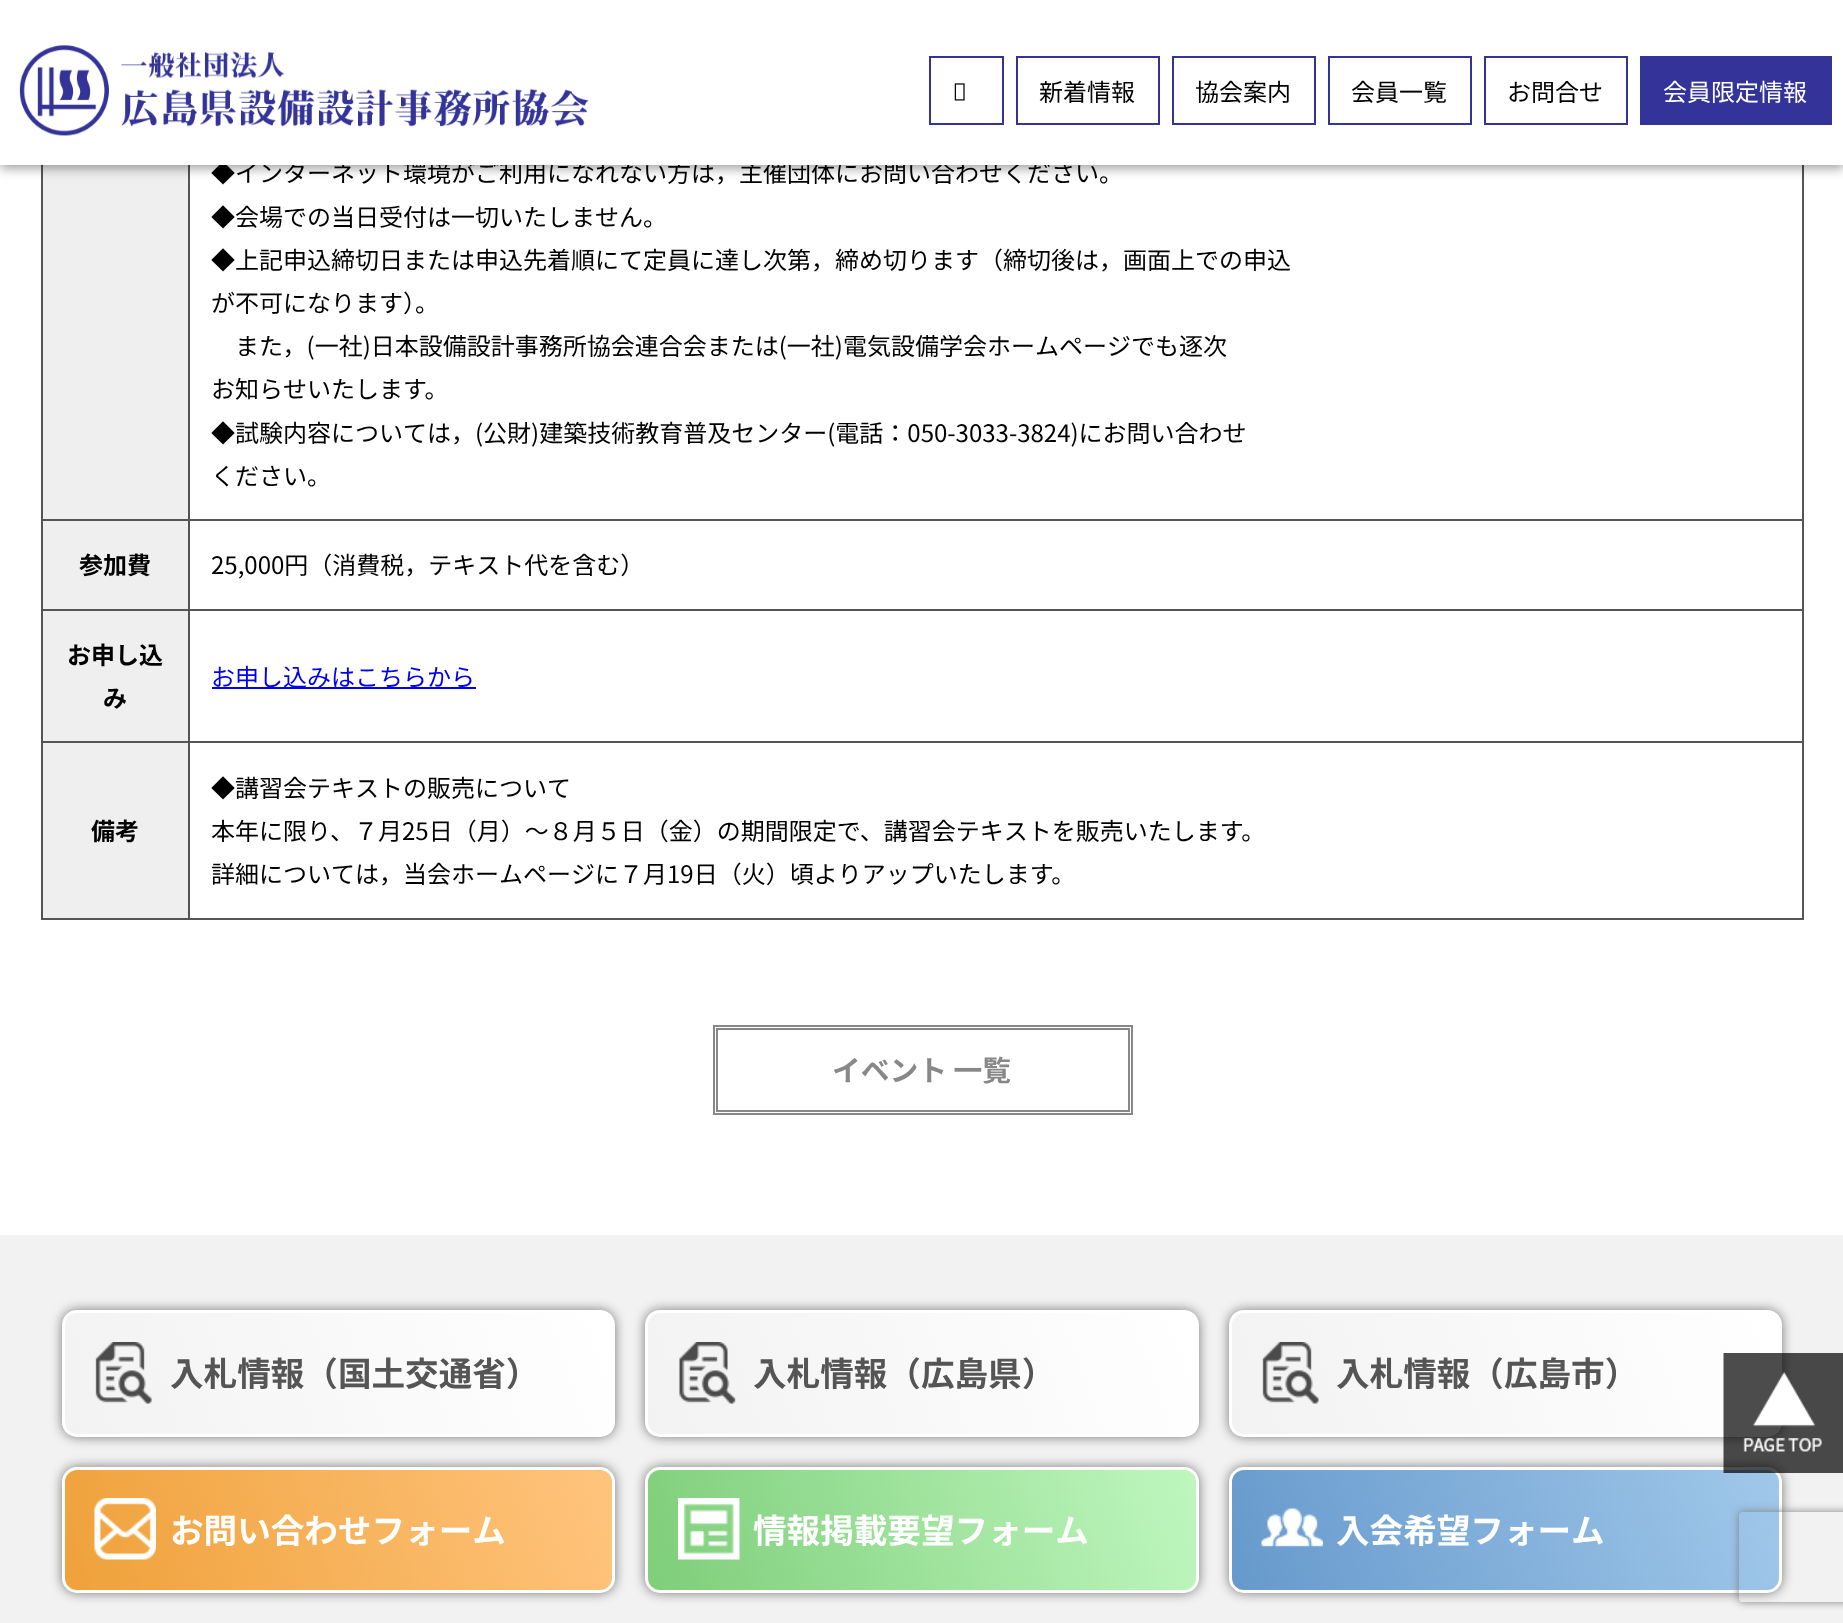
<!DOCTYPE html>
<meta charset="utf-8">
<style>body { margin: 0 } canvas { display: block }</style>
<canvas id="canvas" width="1843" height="1623"></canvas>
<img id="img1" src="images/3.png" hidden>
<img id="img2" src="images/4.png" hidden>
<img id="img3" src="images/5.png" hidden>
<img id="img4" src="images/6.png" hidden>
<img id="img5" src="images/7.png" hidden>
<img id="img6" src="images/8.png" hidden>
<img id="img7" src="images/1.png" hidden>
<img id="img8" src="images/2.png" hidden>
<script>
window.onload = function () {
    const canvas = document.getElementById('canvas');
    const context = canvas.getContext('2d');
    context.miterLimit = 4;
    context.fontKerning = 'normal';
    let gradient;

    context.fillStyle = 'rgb(255, 255, 255)';
    context.fillRect(0, 0, 1843, 1623);
    context.fillStyle = 'rgb(85, 85, 85)';
    context.fillRect(1802, 165, 2, 755);
    context.fillRect(41, 918, 1762, 2);
    context.fillRect(41, 165, 2, 755);
    context.fillStyle = 'rgb(239, 239, 239)';
    context.fillRect(43, 165, 145, 354);
    context.fillStyle = 'rgb(85, 85, 85)';
    context.fillRect(188, 519, 1615, 2);
    context.fillRect(188, 609, 1615, 2);
    context.fillRect(188, 741, 1615, 2);
    context.fillRect(188, 741, 2, 179);
    context.fillRect(41, 741, 148, 2);
    context.fillRect(188, 609, 2, 134);
    context.fillRect(41, 609, 148, 2);
    context.fillRect(188, 519, 2, 92);
    context.fillRect(41, 519, 148, 2);
    context.fillRect(188, 165, 2, 356);
    context.fillStyle = 'rgba(0, 0, 0, 0.4)';
    context.filter = 'blur(6px)';
    context.beginPath();
    context.rect(0, 3, 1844, 165);
    context.fill();
    context.filter = 'none';
    context.fillStyle = 'rgb(239, 239, 239)';
    context.fillRect(43, 521, 145, 88);
    context.fillRect(43, 611, 145, 130);
    context.fillStyle = 'rgb(0, 0, 238)';
    context.fillRect(212, 687, 264, 2);
    context.fillStyle = 'rgb(239, 239, 239)';
    context.fillRect(43, 743, 145, 175);
    context.strokeStyle = 'rgb(136, 136, 136)';
    context.lineWidth = 2;
    context.strokeRect(714, 1026, 418, 88);
    context.strokeRect(717, 1029, 412, 82);
    context.fillStyle = 'rgb(242, 242, 242)';
    context.fillRect(0, 1235, 1843, 388);
    context.fillStyle = 'rgba(0, 0, 0, 0.5)';
    context.filter = 'blur(6px)';
    context.beginPath();
    context.roundRect(62, 1310, 553, 127, 15);
    context.fill();
    context.filter = 'none';
    context.save();
    context.beginPath();
    context.roundRect(62, 1310, 553, 127, 15);
    context.clip();
    gradient = context.createLinearGradient(77, 1468, 600, 1278);
    gradient.addColorStop(0, 'rgb(242, 242, 242)');
    gradient.addColorStop(1, 'rgb(255, 255, 255)');
    context.fillStyle = gradient;
    context.fillRect(65, 1313, 547, 121);
    context.restore();
    context.beginPath();
    context.roundRect(63.5, 1311.5, 550, 124, 13.5);
    context.strokeStyle = 'rgb(255, 255, 255)';
    context.lineWidth = 3;
    context.stroke();
    context.drawImage(document.getElementById('img1'), 95, 1342, 57, 62);
    context.filter = 'blur(6px)';
    context.beginPath();
    context.roundRect(645, 1310, 554, 127, 15);
    context.fill();
    context.filter = 'none';
    context.save();
    context.beginPath();
    context.roundRect(645, 1310, 554, 127, 15);
    context.clip();
    gradient = context.createLinearGradient(660, 1468, 1183, 1278);
    gradient.addColorStop(0, 'rgb(242, 242, 242)');
    gradient.addColorStop(1, 'rgb(255, 255, 255)');
    context.fillStyle = gradient;
    context.fillRect(648, 1313, 548, 121);
    context.restore();
    context.beginPath();
    context.roundRect(646.5, 1311.5, 551, 124, 13.5);
    context.stroke();
    context.drawImage(document.getElementById('img2'), 679, 1342, 57, 62);
    context.filter = 'blur(6px)';
    context.beginPath();
    context.roundRect(1229, 1310, 553, 127, 15);
    context.fill();
    context.filter = 'none';
    context.save();
    context.beginPath();
    context.roundRect(1229, 1310, 553, 127, 15);
    context.clip();
    gradient = context.createLinearGradient(1244, 1468, 1767, 1278);
    gradient.addColorStop(0, 'rgb(242, 242, 242)');
    gradient.addColorStop(1, 'rgb(255, 255, 255)');
    context.fillStyle = gradient;
    context.fillRect(1232, 1313, 547, 121);
    context.restore();
    context.beginPath();
    context.roundRect(1230.5, 1311.5, 550, 124, 13.5);
    context.stroke();
    context.drawImage(document.getElementById('img1'), 1262, 1342, 57, 62);
    context.filter = 'blur(6px)';
    context.beginPath();
    context.roundRect(62, 1467, 553, 126, 15);
    context.fill();
    context.filter = 'none';
    context.save();
    context.beginPath();
    context.roundRect(62, 1467, 553, 126, 15);
    context.clip();
    gradient = context.createLinearGradient(77, 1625, 599, 1435);
    gradient.addColorStop(0, 'rgb(239, 161, 58)');
    gradient.addColorStop(1, 'rgb(255, 196, 125)');
    context.fillStyle = gradient;
    context.fillRect(65, 1470, 547, 120);
    context.restore();
    context.beginPath();
    context.roundRect(63.5, 1468.5, 550, 123, 13.5);
    context.stroke();
    context.drawImage(document.getElementById('img3'), 94, 1498, 62, 62);
    context.filter = 'blur(6px)';
    context.beginPath();
    context.roundRect(645, 1467, 554, 126, 15);
    context.fill();
    context.filter = 'none';
    context.save();
    context.beginPath();
    context.roundRect(645, 1467, 554, 126, 15);
    context.clip();
    gradient = context.createLinearGradient(661, 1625, 1183, 1435);
    gradient.addColorStop(0, 'rgb(126, 206, 122)');
    gradient.addColorStop(1, 'rgb(191, 247, 191)');
    context.fillStyle = gradient;
    context.fillRect(648, 1470, 548, 120);
    context.restore();
    context.beginPath();
    context.roundRect(646.5, 1468.5, 551, 123, 13.5);
    context.stroke();
    context.drawImage(document.getElementById('img4'), 678, 1498, 62, 62);
    context.filter = 'blur(6px)';
    context.beginPath();
    context.roundRect(1229, 1467, 553, 126, 15);
    context.fill();
    context.filter = 'none';
    context.save();
    context.beginPath();
    context.roundRect(1229, 1467, 553, 126, 15);
    context.clip();
    gradient = context.createLinearGradient(1244, 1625, 1766, 1435);
    gradient.addColorStop(0, 'rgb(102, 153, 204)');
    gradient.addColorStop(1, 'rgb(160, 200, 234)');
    context.fillStyle = gradient;
    context.fillRect(1232, 1470, 547, 120);
    context.restore();
    context.beginPath();
    context.roundRect(1230.5, 1468.5, 550, 123, 13.5);
    context.stroke();
    context.drawImage(document.getElementById('img5'), 1261, 1508, 62, 39);
    context.drawImage(document.getElementById('img6'), 1723, 1353, 120, 120);
    context.save();
    context.beginPath();
    context.moveTo(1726, 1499);
    context.lineTo(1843, 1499);
    context.lineTo(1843, 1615);
    context.lineTo(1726, 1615);
    context.closePath();
    context.moveTo(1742, 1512);
    context.lineTo(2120, 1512);
    context.bezierCurveTo(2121.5, 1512, 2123, 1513.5, 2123, 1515);
    context.lineTo(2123, 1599);
    context.bezierCurveTo(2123, 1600.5, 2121.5, 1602, 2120, 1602);
    context.lineTo(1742, 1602);
    context.bezierCurveTo(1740.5, 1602, 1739, 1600.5, 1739, 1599);
    context.lineTo(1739, 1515);
    context.bezierCurveTo(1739, 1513.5, 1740.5, 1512, 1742, 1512);
    context.closePath();
    context.clip('evenodd');
    context.fillStyle = 'rgb(128, 128, 128)';
    context.filter = 'blur(4px)';
    context.beginPath();
    context.roundRect(1739, 1512, 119, 90, 3);
    context.fill();
    context.filter = 'none';
    context.restore();
    context.font = '24px Noto Sans JP';
    context.fillStyle = 'rgb(0, 0, 0)';
    context.fillText('◆インターネット環境がご利用になれない方は，主催団体にお問い合わせください。', 211, 182);
    context.fillStyle = 'rgb(255, 255, 255)';
    context.fillRect(0, 0, 1843, 165);
    context.drawImage(document.getElementById('img7'), 19, 45, 570, 91);
    context.fillStyle = 'rgb(51, 51, 153)';
    context.fillRect(1640, 56, 192, 69);
    context.fillStyle = 'rgb(255, 255, 255)';
    context.fillText('会員限定情報', 1663, 101);
    context.strokeStyle = 'rgb(51, 51, 153)';
    context.lineWidth = 2;
    context.strokeRect(1485, 57, 142, 67);
    context.fillStyle = 'rgb(0, 0, 0)';
    context.fillText('お問合せ', 1507, 101);
    context.strokeRect(1329, 57, 142, 67);
    context.fillText('会員一覧', 1351, 101);
    context.strokeRect(1173, 57, 142, 67);
    context.fillText('協会案内', 1195, 101);
    context.strokeRect(1017, 57, 142, 67);
    context.fillText('新着情報', 1039, 101);
    context.strokeRect(930, 57, 73, 67);
    context.drawImage(document.getElementById('img8'), 954, 83, 11, 18);
    context.fillText('◆会場での当日受付は一切いたしません。', 211, 226);
    context.fillText('◆上記申込締切日または申込先着順にて定員に達し次第，締め切ります（締切後は，画面上での申込', 211, 269);
    context.fillText('が不可になります）。', 211, 312);
    context.fillText('また，(一社)日本設備設計事務所協会連合会または(一社)電気設備学会ホームページでも逐次', 235, 355);
    context.fillText('お知らせいたします。', 211, 398);
    context.fillText('◆試験内容については，(公財)建築技術教育普及センター(電話：050-3033-3824)にお問い合わせ', 211, 442);
    context.fillText('ください。', 211, 485);
    context.font = 'bold 24px Noto Sans JP';
    context.fillText('参加費', 79, 574);
    context.font = '24px Noto Sans JP';
    context.fillText('25,000円（消費税，テキスト代を含む）', 211, 574);
    context.font = 'bold 24px Noto Sans JP';
    context.fillText('お申し込', 67, 664);
    context.fillText('み', 103, 707);
    context.font = '24px Noto Sans JP';
    context.fillStyle = 'rgb(0, 0, 238)';
    context.fillText('お申し込みはこちらから', 211, 686);
    context.font = 'bold 24px Noto Sans JP';
    context.fillStyle = 'rgb(0, 0, 0)';
    context.fillText('備考', 91, 840);
    context.font = '24px Noto Sans JP';
    context.fillText('◆講習会テキストの販売について', 211, 797);
    context.fillText('本年に限り、７月25日（月）～８月５日（金）の期間限定で、講習会テキストを販売いたします。', 211, 840);
    context.fillText('詳細については，当会ホームページに７月19日（火）頃よりアップいたします。', 211, 883);
    context.font = 'bold 28.75px Noto Sans JP';
    context.fillStyle = 'rgb(136, 136, 136)';
    context.fillText('イベント 一覧', 832, 1081);
    context.font = 'bold 33.6px Noto Sans JP';
    context.fillStyle = 'rgb(85, 85, 85)';
    context.fillText('入札情報（国土交通省）', 170, 1386);
    context.fillText('入札情報（広島県）', 753, 1386);
    context.fillText('入札情報（広島市）', 1336, 1386);
    context.fillStyle = 'rgb(255, 255, 255)';
    context.fillText('お問い合わせフォーム', 170, 1543);
    context.fillText('情報掲載要望フォーム', 753, 1543);
    context.fillText('入会希望フォーム', 1336, 1543);
};
</script>
